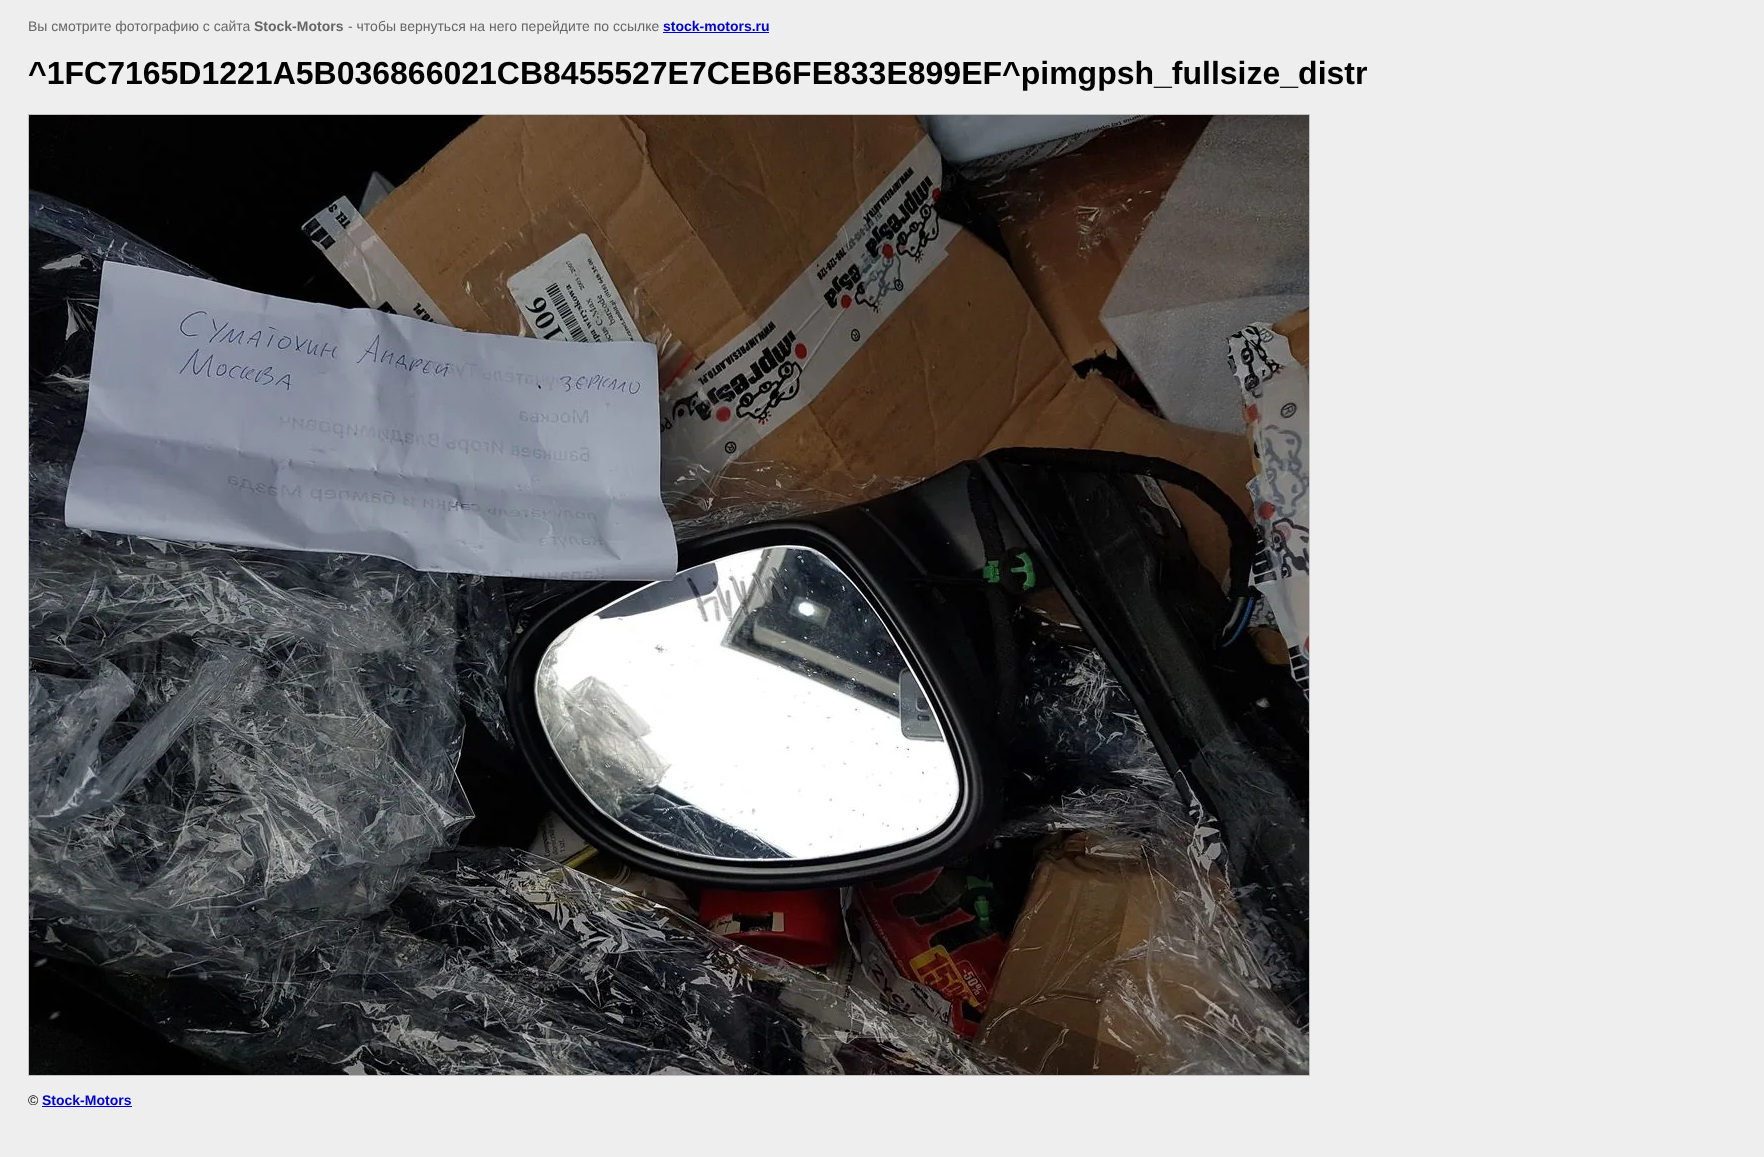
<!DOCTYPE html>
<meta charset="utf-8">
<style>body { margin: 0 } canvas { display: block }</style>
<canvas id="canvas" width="1764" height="1157"></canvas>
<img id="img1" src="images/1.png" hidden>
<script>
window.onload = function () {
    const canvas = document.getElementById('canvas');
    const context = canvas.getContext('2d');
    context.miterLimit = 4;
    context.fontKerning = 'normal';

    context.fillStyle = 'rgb(238, 238, 238)';
    context.fillRect(0, 0, 1764, 1157);
    context.fillStyle = 'rgb(0, 0, 204)';
    context.fillRect(663, 32, 106, 1);
    context.strokeStyle = 'rgb(192, 192, 192)';
    context.strokeRect(28.5, 114.5, 1281, 961);
    context.drawImage(document.getElementById('img1'), 29, 115, 1280, 960);
    context.fillRect(42, 1106, 90, 1);
    context.font = '14px Liberation Sans';
    context.fillStyle = 'rgb(102, 102, 102)';
    context.fillText('Вы смотрите фотографию с сайта', 28, 31);
    context.font = 'bold 14px Liberation Sans';
    context.fillText('Stock-Motors', 254, 31);
    context.font = '14px Liberation Sans';
    context.fillText('- чтобы вернуться на него перейдите по ссылке', 348, 31);
    context.font = 'bold 14px Liberation Sans';
    context.fillStyle = 'rgb(0, 0, 204)';
    context.fillText('stock-motors.ru', 663, 31);
    context.font = 'bold 32px Liberation Sans';
    context.fillStyle = 'rgb(0, 0, 0)';
    context.fillText('^1FC7165D1221A5B036866021CB8455527E7CEB6FE833E899EF^pimgpsh_fullsize_distr', 28, 84);
    context.font = '14px Liberation Sans';
    context.fillText('©', 28, 1105);
    context.font = 'bold 14px Liberation Sans';
    context.fillStyle = 'rgb(0, 0, 204)';
    context.fillText('Stock-Motors', 42, 1105);
};
</script>
